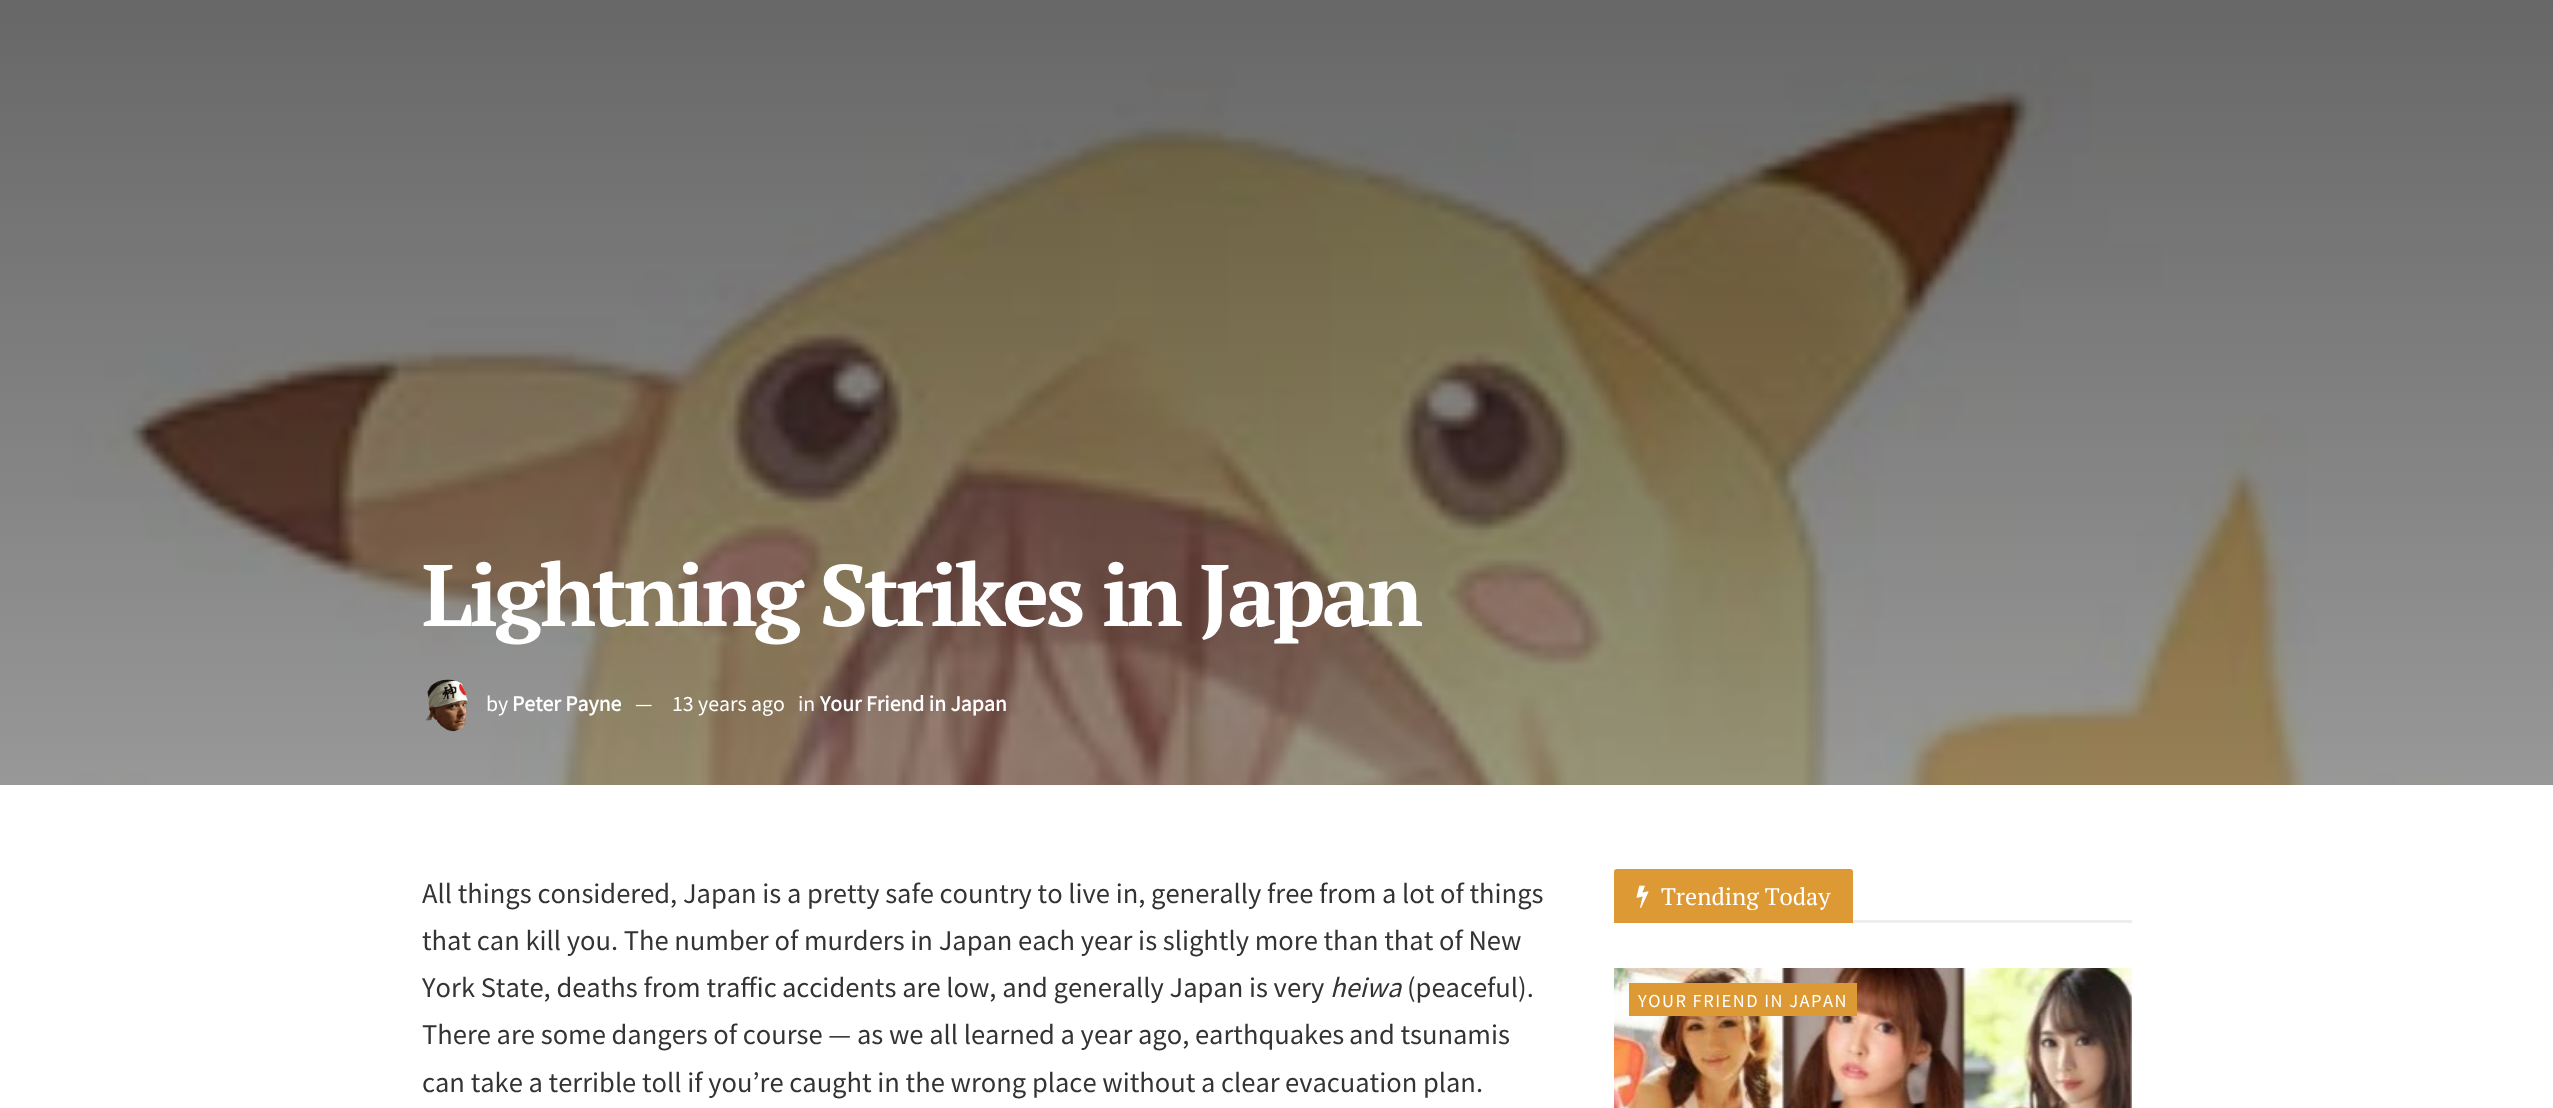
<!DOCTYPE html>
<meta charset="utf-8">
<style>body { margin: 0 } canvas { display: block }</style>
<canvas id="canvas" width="2553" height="1108"></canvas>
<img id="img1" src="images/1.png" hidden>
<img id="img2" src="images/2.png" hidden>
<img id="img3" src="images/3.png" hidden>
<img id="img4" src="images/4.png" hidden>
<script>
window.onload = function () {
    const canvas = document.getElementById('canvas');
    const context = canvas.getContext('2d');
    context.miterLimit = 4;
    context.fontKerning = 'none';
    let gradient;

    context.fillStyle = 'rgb(255, 255, 255)';
    context.fillRect(0, 0, 2553, 1108);
    gradient = context.createLinearGradient(1277, -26, 1277, 785);
    gradient.addColorStop(0, 'rgb(0, 0, 0)');
    gradient.addColorStop(1, 'rgb(84, 84, 84)');
    context.fillStyle = gradient;
    context.fillRect(0, 0, 2553, 785);
    context.drawImage(document.getElementById('img1'), 0, 0, 2553, 785);
    context.drawImage(document.getElementById('img2'), 425, 679, 43, 53);
    context.fillStyle = 'rgb(238, 238, 238)';
    context.fillRect(1853, 920, 279, 3);
    context.fillStyle = 'rgb(221, 153, 51)';
    context.beginPath();
    context.roundRect(1614, 869, 239, 54, [3, 3, 0, 0]);
    context.fill();
    context.drawImage(document.getElementById('img3'), 1636, 885, 13, 23);
    context.fillStyle = 'rgb(247, 247, 247)';
    context.fillRect(2130, 968, 2, 140);
    context.drawImage(document.getElementById('img4'), 1614, 968, 518, 140);
    context.fillStyle = 'rgb(221, 153, 51)';
    context.fillRect(1629, 983, 228, 33);
    context.letterSpacing = '-3.5px';
    context.font = 'bold 87px PT Serif';
    context.fillStyle = 'rgb(255, 255, 255)';
    context.fillText('Lightning Strikes in Japan', 422, 626);
    context.letterSpacing = '0px';
    context.font = '100 19.5px Noto Sans JP';
    context.fillText('by', 486, 711);
    context.font = 'bold 19.5px Noto Sans JP';
    context.fillText('Peter Payne', 512, 711);
    context.font = '100 19.5px Noto Sans JP';
    context.fillText('—', 635, 711);
    context.fillText('13 years ago', 672, 711);
    context.fillText('in', 798, 711);
    context.font = 'bold 19.5px Noto Sans JP';
    context.fillText('Your Friend in Japan', 820, 711);
    context.font = '100 25.5px Noto Sans JP';
    context.fillStyle = 'rgb(51, 51, 51)';
    context.fillText('All things considered, Japan is a pretty safe country to live in, generally free', 422, 903);
    context.fillText('from a lot of things', 1319, 903);
    context.fillText('that can kill you. The number of murders in Japan each year is slightly more than that of New', 422, 950);
    context.fillText('York State, deaths from traffic', 422, 997);
    context.fillText('accidents are low, and generally Japan is very', 782, 997);
    context.font = 'italic 100 25.5px Noto Sans JP';
    context.fillText('heiwa', 1330, 997);
    context.font = '100 25.5px Noto Sans JP';
    context.fillText('(peaceful).', 1407, 997);
    context.fillText('There are some dangers of course — as we all learned a year ago, earthquakes', 422, 1044);
    context.fillText('and tsunamis', 1349, 1044);
    context.fillText('can take a terrible toll if you’re caught in the wrong place without a clear', 422, 1092);
    context.fillText('evacuation plan.', 1285, 1092);
    context.font = '24px PT Serif';
    context.fillStyle = 'rgb(255, 255, 255)';
    context.fillText('Trending Today', 1661, 905);
    context.letterSpacing = '1.5px';
    context.font = '100 16.5px Noto Sans JP';
    context.fillText('YOUR FRIEND IN JAPAN', 1638, 1007);
};
</script>
